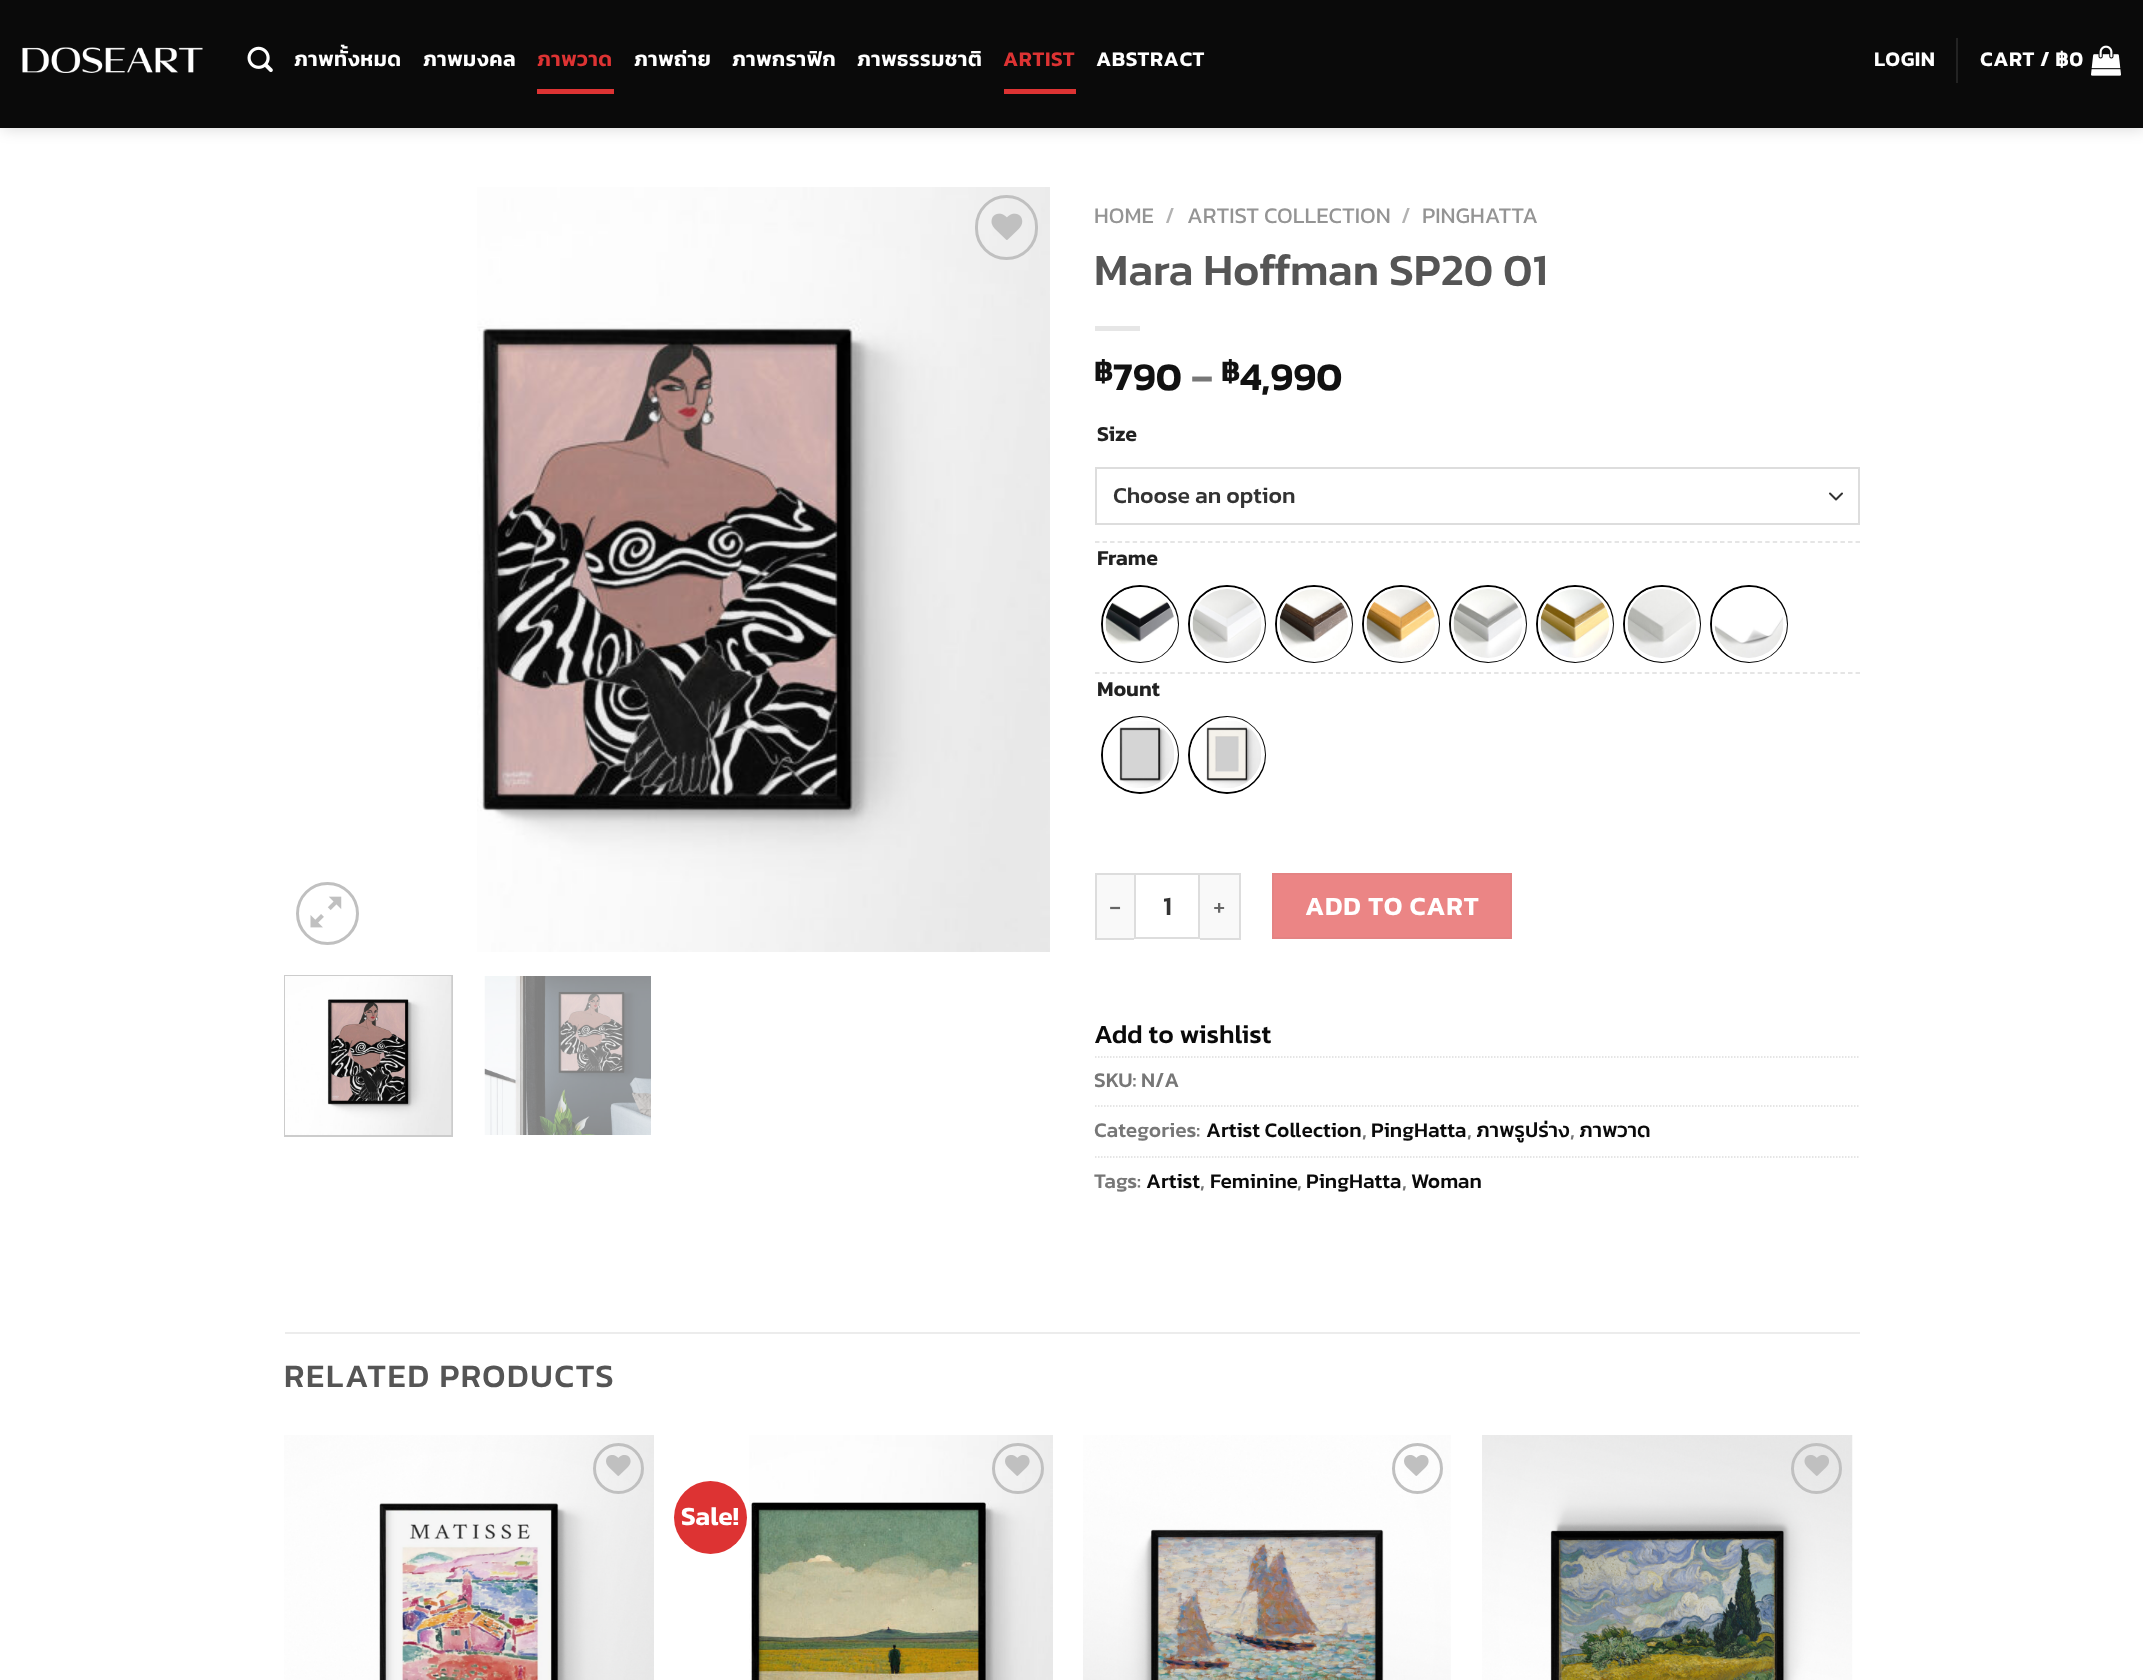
<!DOCTYPE html>
<meta charset="utf-8">
<style>body { margin: 0 } canvas { display: block }</style>
<canvas id="canvas" width="2143" height="1680"></canvas>
<img id="img1" src="images/1.png" hidden>
<img id="img2" src="images/2.png" hidden>
<img id="img3" src="images/3.png" hidden>
<img id="img4" src="images/4.png" hidden>
<img id="img5" src="images/5.png" hidden>
<img id="img6" src="images/6.png" hidden>
<img id="img7" src="images/7.png" hidden>
<img id="img8" src="images/8.png" hidden>
<img id="img9" src="images/9.png" hidden>
<img id="img10" src="images/10.png" hidden>
<img id="img11" src="images/11.png" hidden>
<img id="img12" src="images/12.png" hidden>
<img id="img13" src="images/13.png" hidden>
<img id="img14" src="images/14.png" hidden>
<img id="img15" src="images/15.png" hidden>
<img id="img16" src="images/16.png" hidden>
<img id="img17" src="images/17.png" hidden>
<img id="img18" src="images/18.png" hidden>
<img id="img19" src="images/19.png" hidden>
<img id="img20" src="images/20.png" hidden>
<img id="img21" src="images/21.png" hidden>
<img id="img22" src="images/22.png" hidden>
<img id="img23" src="images/23.png" hidden>
<img id="img24" src="images/24.png" hidden>
<img id="img25" src="images/25.png" hidden>
<img id="img26" src="images/26.png" hidden>
<script>
window.onload = function () {
    const canvas = document.getElementById('canvas');
    const context = canvas.getContext('2d');
    context.miterLimit = 4;
    context.fontKerning = 'normal';

    context.fillStyle = 'rgb(255, 255, 255)';
    context.fillRect(0, 0, 2143, 1680);
    context.fillStyle = 'rgba(0, 0, 0, 0.15)';
    context.filter = 'blur(7.5px)';
    context.beginPath();
    context.rect(2, -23, 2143, 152);
    context.fill();
    context.filter = 'none';
    context.fillStyle = 'rgb(10, 10, 10)';
    context.fillRect(0, 0, 2143, 128);
    context.drawImage(document.getElementById('img1'), 22, 47, 181, 26);
    context.drawImage(document.getElementById('img2'), 247, 46, 26, 27);
    context.fillStyle = 'rgb(221, 51, 51)';
    context.fillRect(537, 89, 77, 5);
    context.fillRect(1004, 89, 72, 5);
    context.fillStyle = 'rgb(35, 35, 35)';
    context.fillRect(1956, 38, 2, 45);
    context.drawImage(document.getElementById('img3'), 2091, 45, 30, 31);
    context.drawImage(document.getElementById('img4'), 477, 187, 573, 765);
    context.beginPath();
    context.roundRect(976.5, 196.5, 60, 62, 30);
    context.strokeStyle = 'rgb(192, 192, 192)';
    context.lineWidth = 3;
    context.stroke();
    context.drawImage(document.getElementById('img5'), 991, 213, 32, 27);
    context.beginPath();
    context.arc(327.5, 913.5, 30, 0, 2 * Math.PI);
    context.stroke();
    context.drawImage(document.getElementById('img6'), 310, 896, 32, 32);
    context.strokeStyle = 'rgb(204, 204, 204)';
    context.lineWidth = 2;
    context.strokeRect(285, 976, 167, 160);
    context.drawImage(document.getElementById('img7'), 285, 976, 167, 159);
    context.drawImage(document.getElementById('img8'), 484, 976, 167, 159);
    context.fillStyle = 'rgb(230, 230, 230)';
    context.fillRect(1095, 326, 45, 5);
    context.beginPath();
    context.moveTo(1830, 493.5);
    context.lineTo(1836, 499.5);
    context.lineTo(1842, 493.5);
    context.strokeStyle = 'rgb(51, 51, 51)';
    context.lineCap = 'round';
    context.lineJoin = 'round';
    context.stroke();
    context.strokeStyle = 'rgb(221, 221, 221)';
    context.lineJoin = 'miter';
    context.strokeRect(1096, 468, 763, 56);
    context.beginPath();
    context.moveTo(1095, 542);
    context.lineTo(1860, 542);
    context.lineWidth = 1.5;
    context.lineCap = 'butt';
    context.setLineDash([4.5, 3.03]);
    context.stroke();
    context.beginPath();
    context.arc(1140, 624, 38, 0, 2 * Math.PI);
    context.strokeStyle = 'rgb(0, 0, 0)';
    context.lineWidth = 2;
    context.setLineDash([]);
    context.stroke();
    context.fillStyle = 'rgb(255, 255, 255)';
    context.beginPath();
    context.arc(1140.5, 624.5, 37.5, 0, 2 * Math.PI);
    context.fill();
    context.drawImage(document.getElementById('img9'), 1105, 599, 69, 46);
    context.beginPath();
    context.arc(1227, 624, 38, 0, 2 * Math.PI);
    context.stroke();
    context.beginPath();
    context.arc(1227.5, 624.5, 37.5, 0, 2 * Math.PI);
    context.fill();
    context.drawImage(document.getElementById('img10'), 1192, 589, 70, 69);
    context.beginPath();
    context.arc(1314, 624, 38, 0, 2 * Math.PI);
    context.stroke();
    context.beginPath();
    context.arc(1314.5, 624.5, 37.5, 0, 2 * Math.PI);
    context.fill();
    context.drawImage(document.getElementById('img11'), 1279, 589, 69, 69);
    context.beginPath();
    context.arc(1401, 624, 38, 0, 2 * Math.PI);
    context.stroke();
    context.beginPath();
    context.arc(1401.5, 624.5, 37.5, 0, 2 * Math.PI);
    context.fill();
    context.drawImage(document.getElementById('img12'), 1366, 589, 69, 69);
    context.beginPath();
    context.arc(1488, 624, 38, 0, 2 * Math.PI);
    context.stroke();
    context.beginPath();
    context.arc(1488.5, 624.5, 37.5, 0, 2 * Math.PI);
    context.fill();
    context.drawImage(document.getElementById('img13'), 1453, 589, 69, 69);
    context.beginPath();
    context.arc(1575, 624, 38, 0, 2 * Math.PI);
    context.stroke();
    context.beginPath();
    context.arc(1575.5, 624.5, 37.5, 0, 2 * Math.PI);
    context.fill();
    context.drawImage(document.getElementById('img14'), 1540, 589, 70, 69);
    context.beginPath();
    context.arc(1662, 624, 38, 0, 2 * Math.PI);
    context.stroke();
    context.beginPath();
    context.arc(1662.5, 624.5, 37.5, 0, 2 * Math.PI);
    context.fill();
    context.drawImage(document.getElementById('img15'), 1627, 589, 70, 69);
    context.beginPath();
    context.arc(1749, 624, 38, 0, 2 * Math.PI);
    context.stroke();
    context.beginPath();
    context.arc(1749.5, 624.5, 37.5, 0, 2 * Math.PI);
    context.fill();
    context.drawImage(document.getElementById('img16'), 1714, 617, 70, 41);
    context.beginPath();
    context.moveTo(1095, 673);
    context.lineTo(1860, 673);
    context.strokeStyle = 'rgb(221, 221, 221)';
    context.lineWidth = 1.5;
    context.setLineDash([4.5, 3.03]);
    context.stroke();
    context.beginPath();
    context.arc(1140, 755, 38, 0, 2 * Math.PI);
    context.strokeStyle = 'rgb(0, 0, 0)';
    context.lineWidth = 2;
    context.setLineDash([]);
    context.stroke();
    context.beginPath();
    context.arc(1140.5, 754.5, 37.5, 0, 2 * Math.PI);
    context.fill();
    context.drawImage(document.getElementById('img17'), 1119, 721, 55, 67);
    context.beginPath();
    context.arc(1227, 755, 38, 0, 2 * Math.PI);
    context.stroke();
    context.beginPath();
    context.arc(1227.5, 754.5, 37.5, 0, 2 * Math.PI);
    context.fill();
    context.drawImage(document.getElementById('img18'), 1206, 721, 55, 67);
    context.fillStyle = 'rgb(249, 249, 249)';
    context.fillRect(1097, 875, 37, 63);
    context.fillStyle = 'rgb(221, 221, 221)';
    context.fillRect(1095, 873, 39, 2);
    context.fillRect(1095, 938, 39, 2);
    context.fillRect(1095, 873, 2, 66);
    context.strokeStyle = 'rgb(221, 221, 221)';
    context.strokeRect(1135, 874, 64, 64);
    context.fillStyle = 'rgb(249, 249, 249)';
    context.fillRect(1200, 875, 39, 63);
    context.fillStyle = 'rgb(221, 221, 221)';
    context.fillRect(1200, 873, 41, 2);
    context.fillRect(1239, 873, 2, 66);
    context.fillRect(1200, 938, 41, 2);
    context.fillStyle = 'rgb(235, 133, 133)';
    context.beginPath();
    context.rect(1273, 874, 238, 64);
    context.fill();
    context.strokeStyle = 'rgb(228, 131, 131)';
    context.stroke();
    context.beginPath();
    context.moveTo(1095, 1057);
    context.lineTo(1860, 1057);
    context.strokeStyle = 'rgb(221, 221, 221)';
    context.lineWidth = 1.5;
    context.setLineDash([1.5, 1.5]);
    context.stroke();
    context.beginPath();
    context.moveTo(1095, 1106);
    context.lineTo(1860, 1106);
    context.stroke();
    context.beginPath();
    context.moveTo(1095, 1157);
    context.lineTo(1860, 1157);
    context.stroke();
    context.fillStyle = 'rgb(236, 236, 236)';
    context.fillRect(285, 1332, 1575, 2);
    context.drawImage(document.getElementById('img19'), 284, 1435, 370, 245);
    context.beginPath();
    context.arc(618.5, 1468.5, 24, 0, 2 * Math.PI);
    context.strokeStyle = 'rgb(192, 192, 192)';
    context.lineWidth = 3;
    context.setLineDash([]);
    context.stroke();
    context.drawImage(document.getElementById('img20'), 606, 1455, 25, 21);
    context.fillStyle = 'rgb(221, 51, 51)';
    context.beginPath();
    context.arc(710.5, 1517.5, 36.5, 0, 2 * Math.PI);
    context.fill();
    context.drawImage(document.getElementById('img21'), 749, 1435, 304, 245);
    context.beginPath();
    context.roundRect(993.5, 1444.5, 49, 48, 24);
    context.stroke();
    context.drawImage(document.getElementById('img22'), 1005, 1455, 25, 21);
    context.drawImage(document.getElementById('img23'), 1083, 1435, 368, 245);
    context.beginPath();
    context.arc(1417.5, 1468.5, 24, 0, 2 * Math.PI);
    context.stroke();
    context.drawImage(document.getElementById('img24'), 1404, 1455, 25, 21);
    context.drawImage(document.getElementById('img25'), 1482, 1435, 371, 245);
    context.beginPath();
    context.arc(1816.5, 1468.5, 24, 0, 2 * Math.PI);
    context.stroke();
    context.drawImage(document.getElementById('img26'), 1804, 1455, 25, 21);
    context.letterSpacing = '0.5px';
    context.font = '600 21px Kanit';
    context.fillStyle = 'rgb(255, 255, 255)';
    context.fillText('ภาพทั้งหมด', 294, 66);
    context.fillText('ภาพมงคล', 423, 66);
    context.fillStyle = 'rgb(221, 51, 51)';
    context.fillText('ภาพวาด', 537, 66);
    context.fillStyle = 'rgb(255, 255, 255)';
    context.fillText('ภาพถ่าย', 634, 66);
    context.fillText('ภาพกราฟิก', 732, 66);
    context.fillText('ภาพธรรมชาติ', 857, 66);
    context.fillStyle = 'rgb(221, 51, 51)';
    context.fillText('ARTIST', 1003, 66);
    context.fillStyle = 'rgb(255, 255, 255)';
    context.fillText('ABSTRACT', 1096, 66);
    context.fillText('LOGIN', 1874, 66);
    context.fillText('CART', 1980, 66);
    context.fillText('/ ฿0', 2040, 66);
    context.letterSpacing = '0px';
    context.font = '22.5px Kanit';
    context.fillStyle = 'rgb(148, 148, 148)';
    context.fillText('HOME', 1094, 223);
    context.fillStyle = 'rgb(178, 178, 178)';
    context.fillText('/', 1165, 223);
    context.fillStyle = 'rgb(148, 148, 148)';
    context.fillText('ARTIST COLLECTION', 1187, 223);
    context.fillStyle = 'rgb(178, 178, 178)';
    context.fillText('/', 1401, 223);
    context.fillStyle = 'rgb(148, 148, 148)';
    context.fillText('PINGHATTA', 1422, 223);
    context.font = '500 44.9px Kanit';
    context.fillStyle = 'rgb(85, 85, 85)';
    context.fillText('Mara Hoffman SP20 01', 1094, 285);
    context.font = '600 30px Kanit';
    context.fillStyle = 'rgb(17, 17, 17)';
    context.fillText('฿', 1094, 381);
    context.font = '600 39.5px Kanit';
    context.fillText('790', 1113, 390);
    context.fillStyle = 'rgb(119, 119, 119)';
    context.fillText('–', 1191, 390);
    context.font = '600 30px Kanit';
    context.fillStyle = 'rgb(17, 17, 17)';
    context.fillText('฿', 1221, 381);
    context.font = '600 39.5px Kanit';
    context.fillText('4,990', 1240, 390);
    context.font = '600 21.5px Kanit';
    context.fillStyle = 'rgb(34, 34, 34)';
    context.fillText('Size', 1097, 441);
    context.font = '500 23px Kanit';
    context.fillStyle = 'rgb(51, 51, 51)';
    context.fillText('Choose an option', 1113, 503);
    context.font = '600 21.5px Kanit';
    context.fillStyle = 'rgb(34, 34, 34)';
    context.fillText('Frame', 1097, 565);
    context.fillText('Mount', 1097, 696);
    context.letterSpacing = '1px';
    context.font = '26px Kanit';
    context.fillStyle = 'rgb(102, 102, 102)';
    context.fillText('-', 1109, 915);
    context.letterSpacing = '0px';
    context.font = '500 26.5px Kanit';
    context.fillStyle = 'rgb(51, 51, 51)';
    context.fillText('1', 1163, 915);
    context.letterSpacing = '1px';
    context.font = '26px Kanit';
    context.fillStyle = 'rgb(102, 102, 102)';
    context.fillText('+', 1213, 915);
    context.letterSpacing = '0.75px';
    context.font = '600 26.5px Kanit';
    context.fillStyle = 'rgb(255, 255, 255)';
    context.fillText('ADD TO CART', 1305, 915);
    context.letterSpacing = '0px';
    context.font = '500 26.5px Kanit';
    context.fillStyle = 'rgb(10, 10, 10)';
    context.fillText('Add to wishlist', 1094, 1043);
    context.font = '500 21px Kanit';
    context.fillStyle = 'rgb(119, 119, 119)';
    context.fillText('SKU: N/A', 1094, 1087);
    context.fillText('Categories:', 1094, 1137);
    context.fillStyle = 'rgb(10, 10, 10)';
    context.fillText('Artist Collection', 1206, 1137);
    context.fillStyle = 'rgb(119, 119, 119)';
    context.fillText(',', 1362, 1137);
    context.fillStyle = 'rgb(10, 10, 10)';
    context.fillText('PingHatta', 1371, 1137);
    context.fillStyle = 'rgb(119, 119, 119)';
    context.fillText(',', 1467, 1137);
    context.fillStyle = 'rgb(10, 10, 10)';
    context.fillText('ภาพรูปร่าง', 1476, 1137);
    context.fillStyle = 'rgb(119, 119, 119)';
    context.fillText(',', 1570, 1137);
    context.fillStyle = 'rgb(10, 10, 10)';
    context.fillText('ภาพวาด', 1579, 1137);
    context.fillStyle = 'rgb(119, 119, 119)';
    context.fillText('Tags:', 1094, 1188);
    context.fillStyle = 'rgb(10, 10, 10)';
    context.fillText('Artist', 1146, 1188);
    context.fillStyle = 'rgb(119, 119, 119)';
    context.fillText(',', 1200, 1188);
    context.fillStyle = 'rgb(10, 10, 10)';
    context.fillText('Feminine', 1210, 1188);
    context.fillStyle = 'rgb(119, 119, 119)';
    context.fillText(',', 1297, 1188);
    context.fillStyle = 'rgb(10, 10, 10)';
    context.fillText('PingHatta', 1306, 1188);
    context.fillStyle = 'rgb(119, 119, 119)';
    context.fillText(',', 1402, 1188);
    context.fillStyle = 'rgb(10, 10, 10)';
    context.fillText('Woman', 1411, 1188);
    context.letterSpacing = '1.6px';
    context.font = '500 33px Kanit';
    context.fillStyle = 'rgb(85, 85, 85)';
    context.fillText('RELATED PRODUCTS', 284, 1387);
    context.letterSpacing = '0px';
    context.font = '600 26.5px Kanit';
    context.fillStyle = 'rgb(255, 255, 255)';
    context.fillText('Sale!', 681, 1525);
};
</script>
